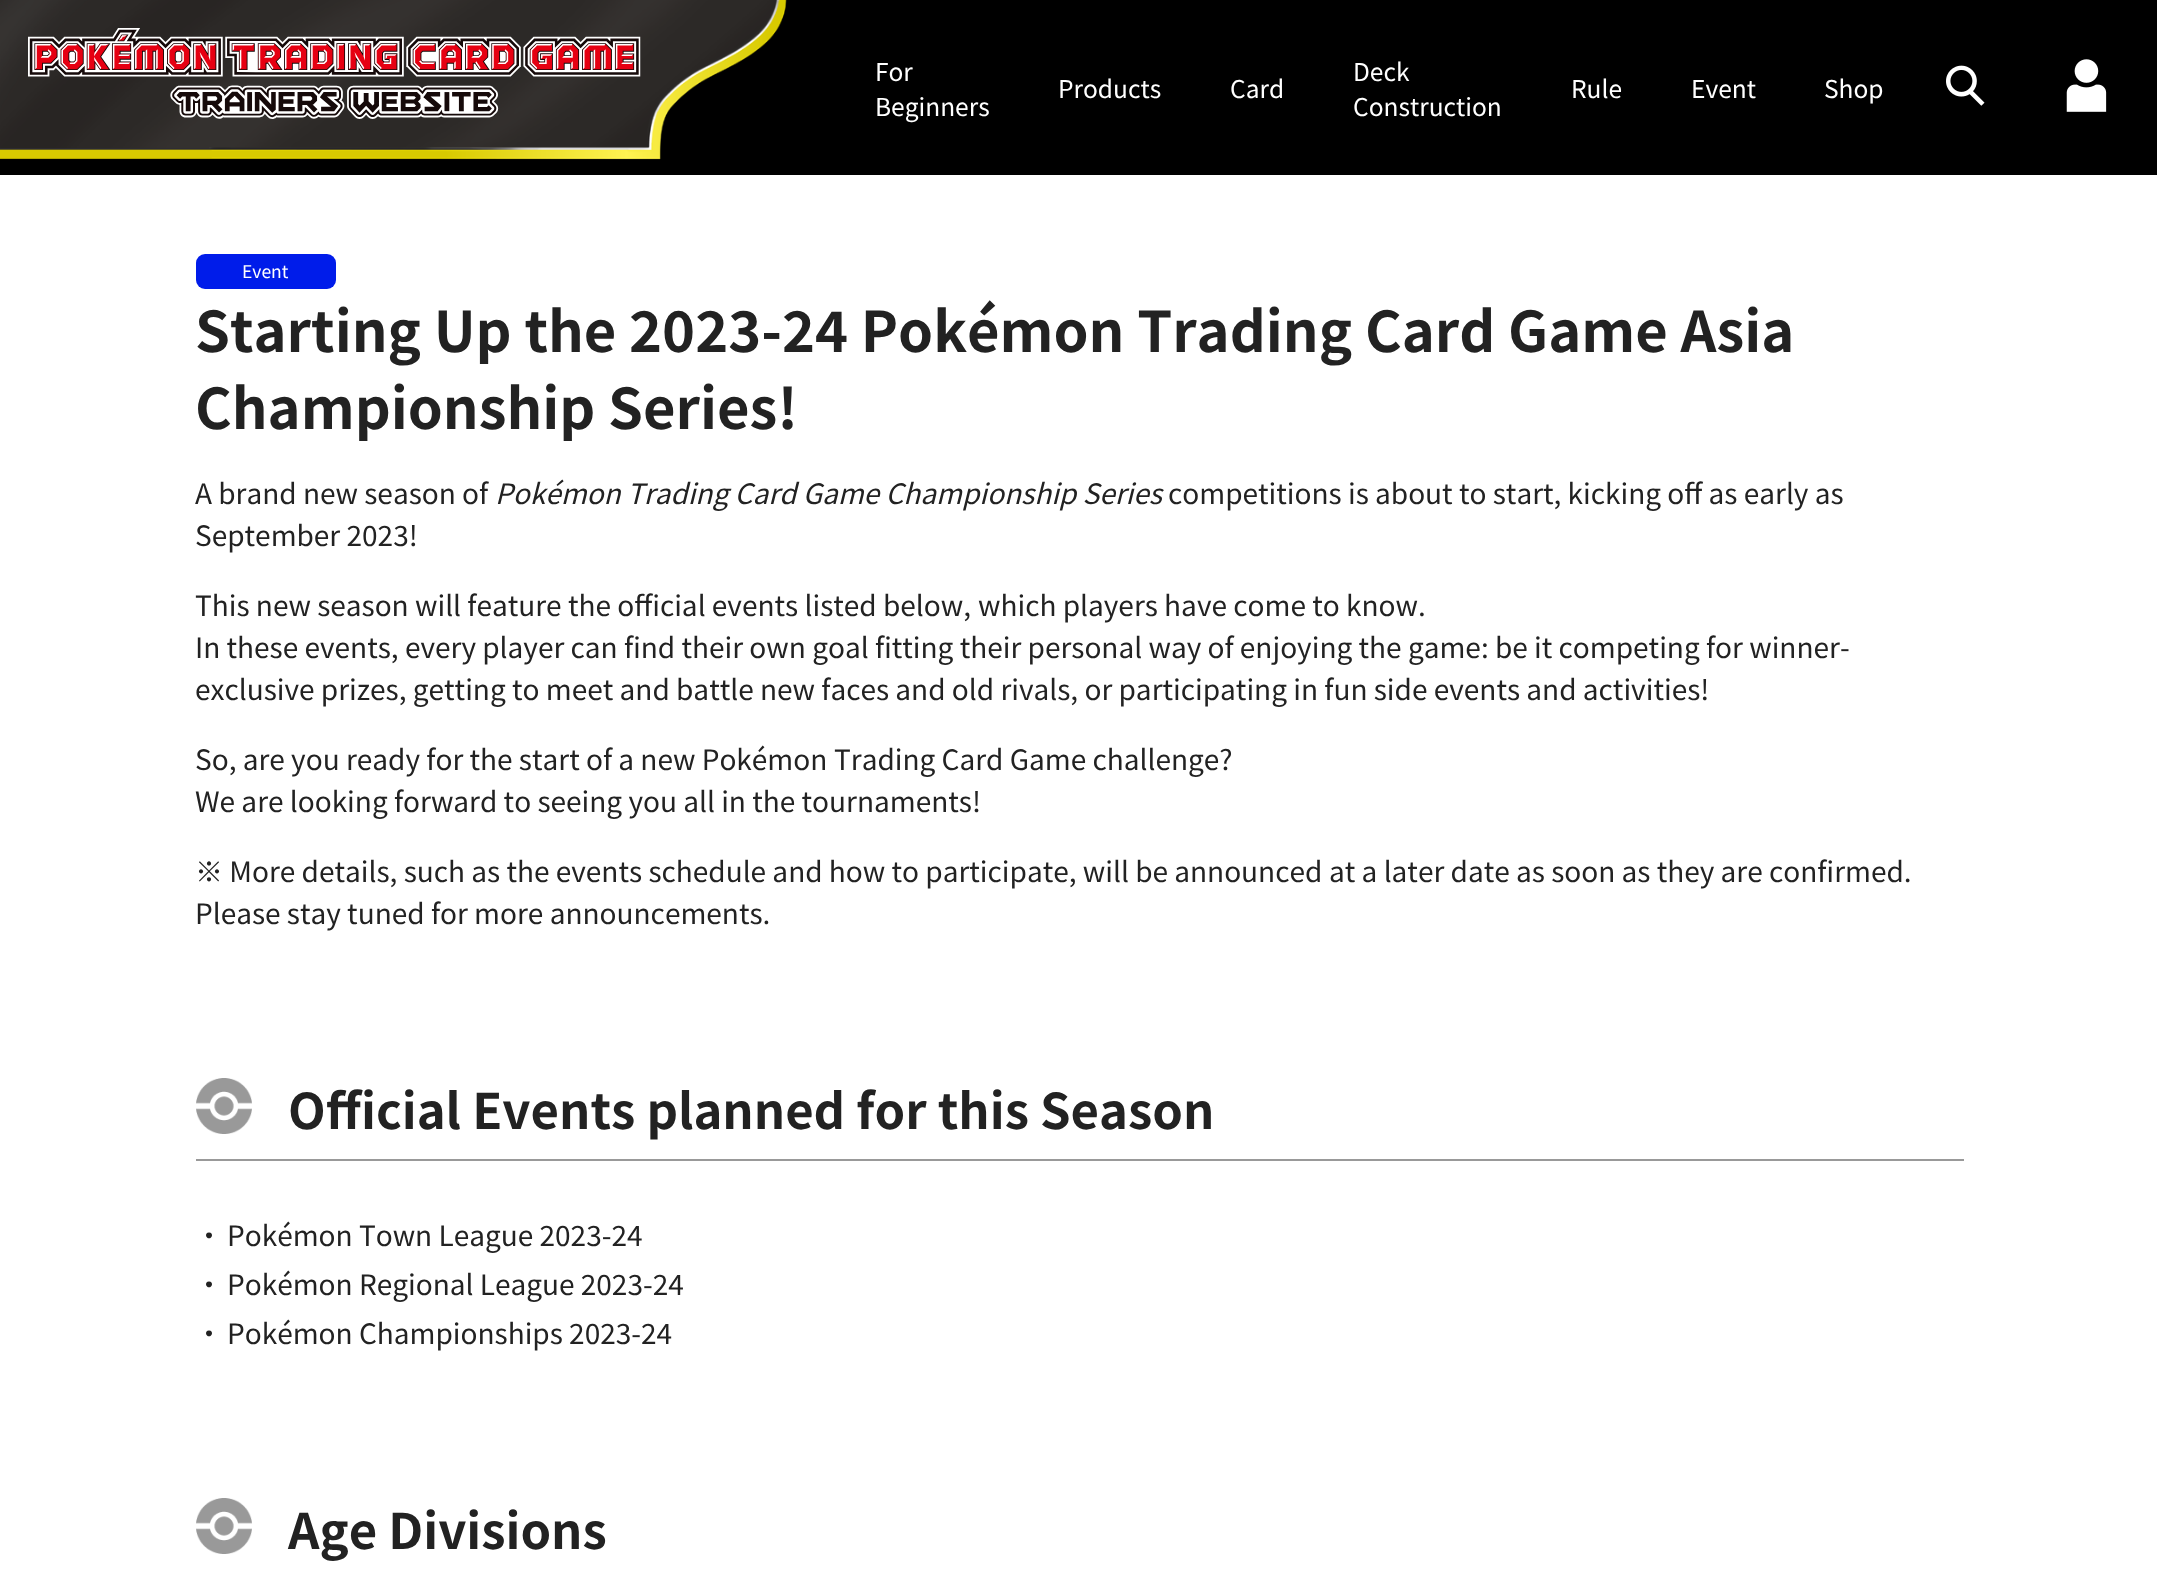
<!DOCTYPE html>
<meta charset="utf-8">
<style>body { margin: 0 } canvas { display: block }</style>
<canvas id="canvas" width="2157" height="1576"></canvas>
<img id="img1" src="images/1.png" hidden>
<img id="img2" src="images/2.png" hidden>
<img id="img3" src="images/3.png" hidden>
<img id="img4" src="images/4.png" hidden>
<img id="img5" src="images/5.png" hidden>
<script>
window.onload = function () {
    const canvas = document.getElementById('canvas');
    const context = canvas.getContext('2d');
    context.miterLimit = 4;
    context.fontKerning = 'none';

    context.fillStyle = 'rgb(255, 255, 255)';
    context.fillRect(0, 0, 2157, 1576);
    context.fillStyle = 'rgb(0, 0, 0)';
    context.fillRect(0, 0, 2157, 175);
    context.drawImage(document.getElementById('img1'), 0, 0, 787, 160);
    context.drawImage(document.getElementById('img2'), 28, 28, 613, 91);
    context.drawImage(document.getElementById('img3'), 1946, 65, 39, 41);
    context.drawImage(document.getElementById('img4'), 2066, 59, 41, 53);
    context.fillStyle = 'rgb(0, 28, 234)';
    context.beginPath();
    context.roundRect(196, 254, 140, 35, 9);
    context.fill();
    context.fillStyle = 'rgb(153, 153, 153)';
    context.fillRect(196, 1159, 1768, 2);
    context.drawImage(document.getElementById('img5'), 196, 1078, 56, 56);
    context.drawImage(document.getElementById('img5'), 196, 1498, 56, 56);
    context.font = '24.5px Noto Sans JP';
    context.fillStyle = 'rgb(255, 255, 255)';
    context.fillText('For', 875, 81);
    context.fillText('Beginners', 875, 116);
    context.fillText('Products', 1058, 98);
    context.fillText('Card', 1230, 98);
    context.fillText('Deck', 1353, 81);
    context.fillText('Construction', 1353, 116);
    context.fillText('Rule', 1571, 98);
    context.fillText('Event', 1691, 98);
    context.fillText('Shop', 1824, 98);
    context.font = '17.5px Noto Sans JP';
    context.fillText('Event', 242, 278);
    context.font = 'bold 56px Noto Sans JP';
    context.fillStyle = 'rgb(34, 34, 34)';
    context.fillText('Starting Up the 2023-24 Pokémon Trading', 195, 352);
    context.fillText('Card Game Asia', 1365, 352);
    context.fillText('Championship Series!', 195, 429);
    context.font = '28px Noto Sans JP';
    context.fillText('A brand new season of', 195, 504);
    context.font = 'italic 28px Noto Sans JP';
    context.fillText('Pokémon Trading Card Game Championship Series', 495, 504);
    context.font = '28px Noto Sans JP';
    context.fillText('competitions is about to start, kicking off as early as', 1168, 504);
    context.fillText('September 2023!', 195, 546);
    context.fillText('This new season will feature the official events listed below,', 195, 616);
    context.fillText('which players have come to know.', 978, 616);
    context.fillText('In these events, every player can find their own goal fitting their personal way of enjoying the game: be it competing', 195, 658);
    context.fillText('for winner-', 1706, 658);
    context.fillText('exclusive prizes, getting to meet and battle', 195, 700);
    context.fillText('new faces and old rivals, or participating in fun side events and activities!', 760, 700);
    context.fillText('So, are you ready for the start of a new Pokémon', 195, 770);
    context.fillText('Trading Card Game challenge?', 834, 770);
    context.fillText('We are looking forward to seeing you all in the tournaments!', 195, 812);
    context.fillText('※ More details, such as the events schedule and how to participate, will be announced', 195, 882);
    context.fillText('at a later date as soon as they are confirmed.', 1329, 882);
    context.fillText('Please stay tuned for more announcements.', 195, 924);
    context.font = 'bold 49px Noto Sans JP';
    context.fillText('Official Events planned for this Season', 288, 1129);
    context.font = '28px Noto Sans JP';
    context.fillText('・', 195, 1246);
    context.fillText('Pokémon Town League 2023-24', 227, 1246);
    context.fillText('・', 195, 1295);
    context.fillText('Pokémon Regional League 2023-24', 227, 1295);
    context.fillText('・', 195, 1344);
    context.fillText('Pokémon Championships 2023-24', 227, 1344);
    context.font = 'bold 49px Noto Sans JP';
    context.fillText('Age Divisions', 288, 1549);
};
</script>
